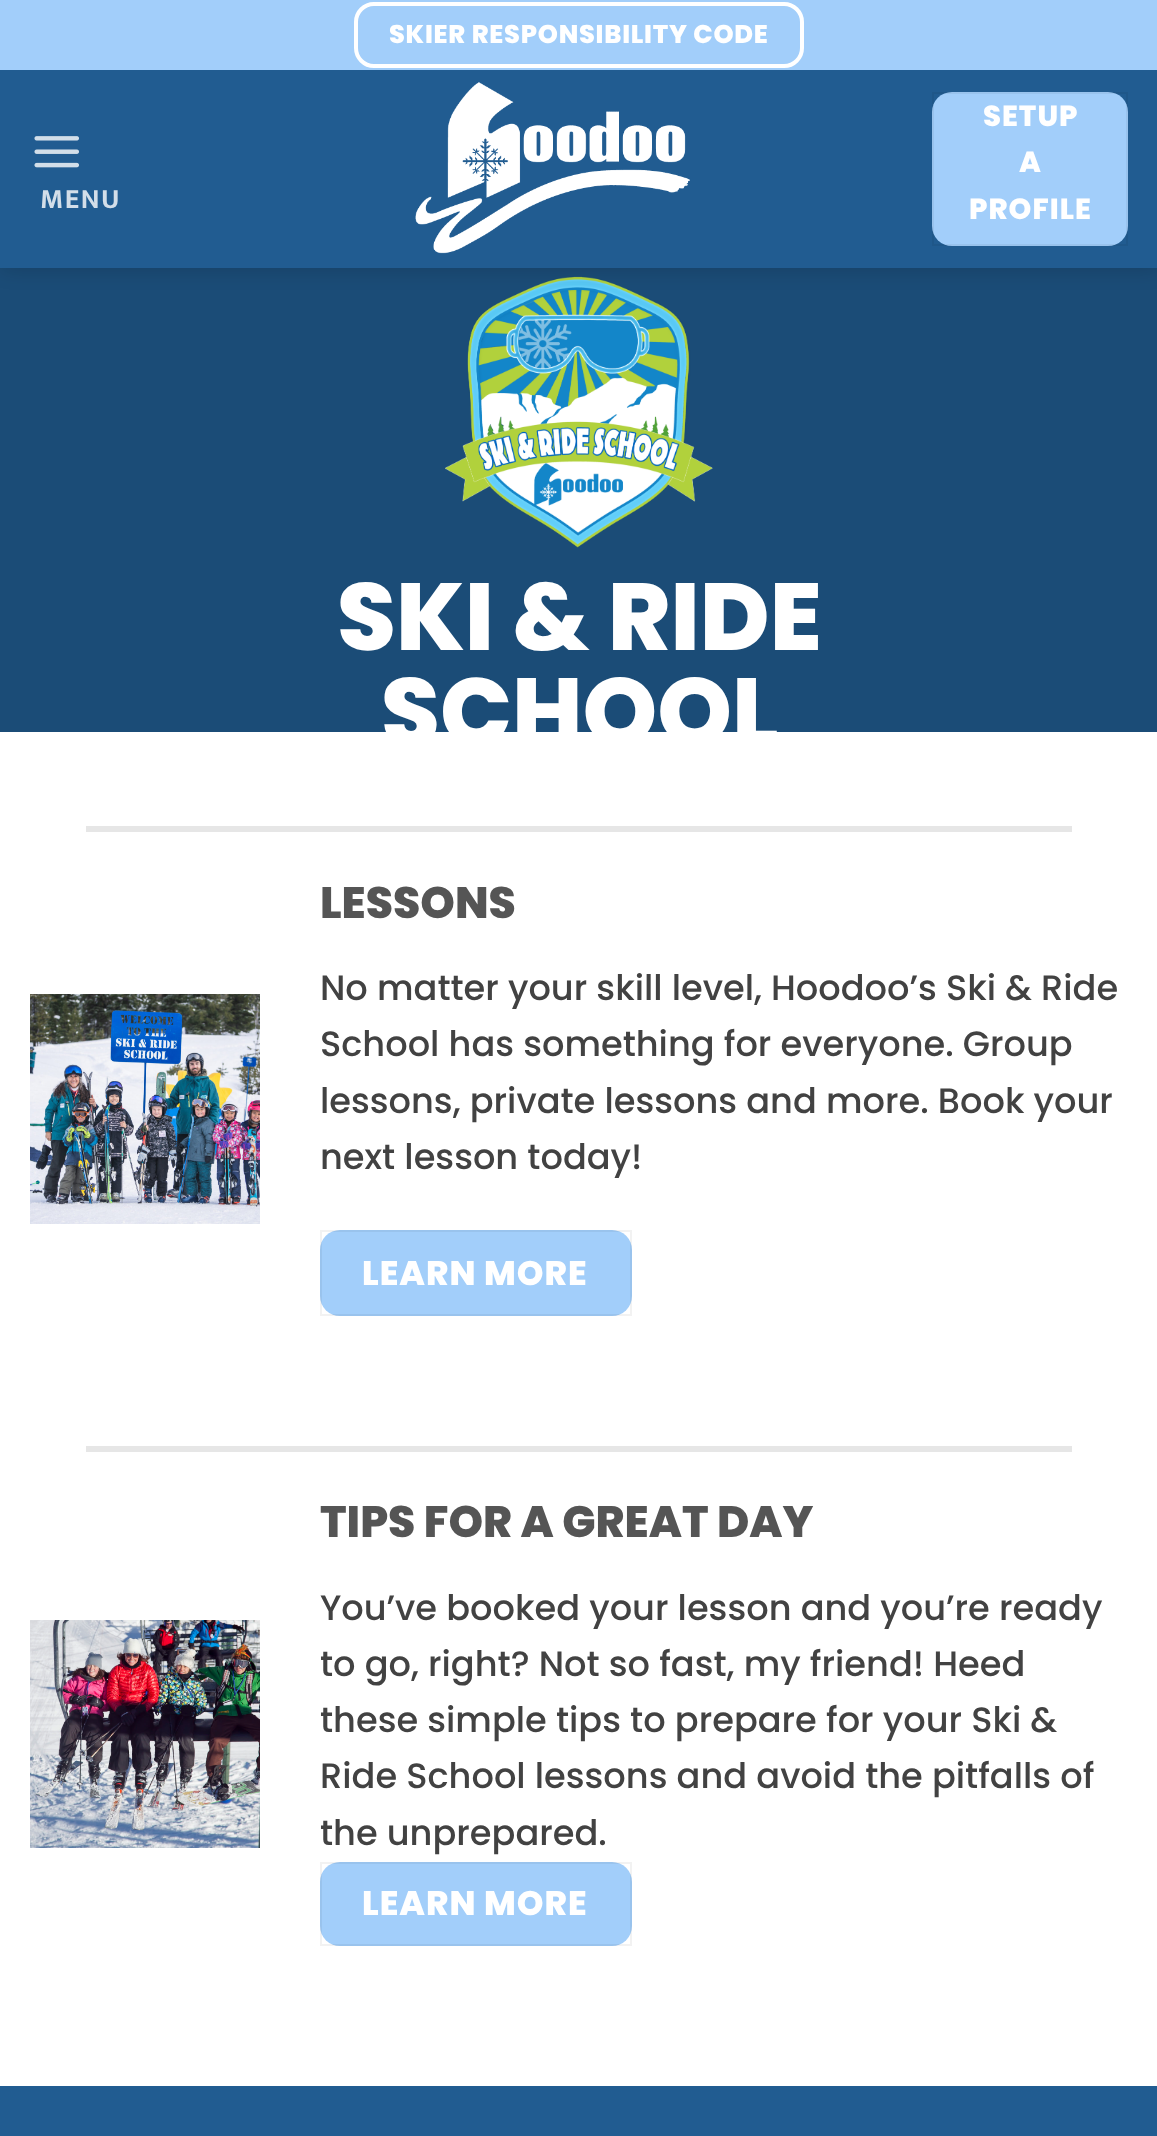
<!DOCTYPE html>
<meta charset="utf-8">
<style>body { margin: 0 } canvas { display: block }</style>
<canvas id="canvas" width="1157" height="2136"></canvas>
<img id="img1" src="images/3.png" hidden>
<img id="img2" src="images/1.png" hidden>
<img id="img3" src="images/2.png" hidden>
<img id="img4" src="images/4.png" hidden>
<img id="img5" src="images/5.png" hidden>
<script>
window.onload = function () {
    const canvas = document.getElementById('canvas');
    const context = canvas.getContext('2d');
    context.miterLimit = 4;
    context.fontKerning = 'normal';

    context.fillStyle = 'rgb(255, 255, 255)';
    context.fillRect(0, 0, 1157, 2136);
    context.fillStyle = 'rgb(27, 76, 119)';
    context.fillRect(0, 268, 1157, 464);
    context.drawImage(document.getElementById('img1'), 445, 276, 268, 272);
    context.fillStyle = 'rgba(0, 0, 0, 0.15)';
    context.filter = 'blur(10px)';
    context.beginPath();
    context.rect(2, 2, 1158, 268);
    context.fill();
    context.filter = 'none';
    context.fillStyle = 'rgb(162, 206, 250)';
    context.fillRect(0, 0, 1157, 70);
    context.beginPath();
    context.roundRect(356, 4, 446, 62, 18);
    context.strokeStyle = 'rgb(255, 255, 255)';
    context.lineWidth = 4;
    context.stroke();
    context.fillStyle = 'rgb(33, 92, 145)';
    context.fillRect(0, 70, 1157, 198);
    context.drawImage(document.getElementById('img2'), 34, 136, 45, 32);
    context.drawImage(document.getElementById('img3'), 415, 82, 275, 172);
    context.fillStyle = 'rgb(162, 206, 250)';
    context.beginPath();
    context.roundRect(932, 92, 196, 154, 20);
    context.fill();
    context.strokeStyle = 'rgba(0, 0, 0, 0.05)';
    context.lineWidth = 2;
    context.strokeRect(933, 93, 194, 152);
    context.fillStyle = 'rgb(230, 230, 230)';
    context.fillRect(86, 826, 986, 6);
    context.drawImage(document.getElementById('img4'), 30, 994, 230, 230);
    context.fillStyle = 'rgb(162, 206, 250)';
    context.beginPath();
    context.roundRect(320, 1230, 312, 86, 20);
    context.fill();
    context.strokeRect(321, 1231, 310, 84);
    context.fillStyle = 'rgb(230, 230, 230)';
    context.fillRect(86, 1446, 986, 6);
    context.drawImage(document.getElementById('img5'), 30, 1620, 230, 228);
    context.fillStyle = 'rgb(162, 206, 250)';
    context.beginPath();
    context.roundRect(320, 1862, 312, 84, 20);
    context.fill();
    context.strokeRect(321, 1863, 310, 82);
    context.fillStyle = 'rgb(33, 92, 145)';
    context.fillRect(0, 2086, 1157, 50);
    context.letterSpacing = '0.75px';
    context.font = '800 25.6px Poppins';
    context.fillStyle = 'rgb(255, 255, 255)';
    context.fillText('SKIER RESPONSIBILITY CODE', 389, 43);
    context.letterSpacing = '1.5px';
    context.font = 'bold 28px Mukta';
    context.fillStyle = 'rgb(211, 222, 233)';
    context.fillText('MENU', 40, 208);
    context.letterSpacing = '1px';
    context.font = '800 29px Poppins';
    context.fillStyle = 'rgb(255, 255, 255)';
    context.fillText('SETUP', 983, 126);
    context.fillText('A', 1019, 172);
    context.fillText('PROFILE', 969, 219);
    context.letterSpacing = '0px';
    context.font = '800 95px Poppins';
    context.fillText('SKI & RIDE', 337, 650);
    context.fillText('SCHOOL', 381, 745);
    context.font = '800 44px Poppins';
    context.fillStyle = 'rgb(85, 85, 85)';
    context.fillText('LESSONS', 320, 918);
    context.font = '500 35.2px Poppins';
    context.fillStyle = 'rgb(66, 66, 66)';
    context.fillText('No matter your skill level, Hoodoo’s Ski & Ride', 320, 1000);
    context.fillText('School has something for everyone. Group', 320, 1056);
    context.fillText('lessons, private lessons and more. Book your', 320, 1113);
    context.fillText('next lesson today!', 320, 1169);
    context.letterSpacing = '1px';
    context.font = '800 34px Poppins';
    context.fillStyle = 'rgb(255, 255, 255)';
    context.fillText('LEARN MORE', 362, 1285);
    context.letterSpacing = '0px';
    context.font = '800 44px Poppins';
    context.fillStyle = 'rgb(85, 85, 85)';
    context.fillText('TIPS FOR A GREAT DAY', 320, 1537);
    context.font = '500 35.2px Poppins';
    context.fillStyle = 'rgb(66, 66, 66)';
    context.fillText('You’ve booked your lesson and you’re ready', 320, 1620);
    context.fillText('to go, right? Not so fast, my friend! Heed', 320, 1676);
    context.fillText('these simple tips to prepare for your Ski &', 320, 1732);
    context.fillText('Ride School lessons and avoid the pitfalls of', 320, 1788);
    context.fillText('the unprepared.', 320, 1845);
    context.letterSpacing = '1px';
    context.font = '800 34px Poppins';
    context.fillStyle = 'rgb(255, 255, 255)';
    context.fillText('LEARN MORE', 362, 1915);
};
</script>
